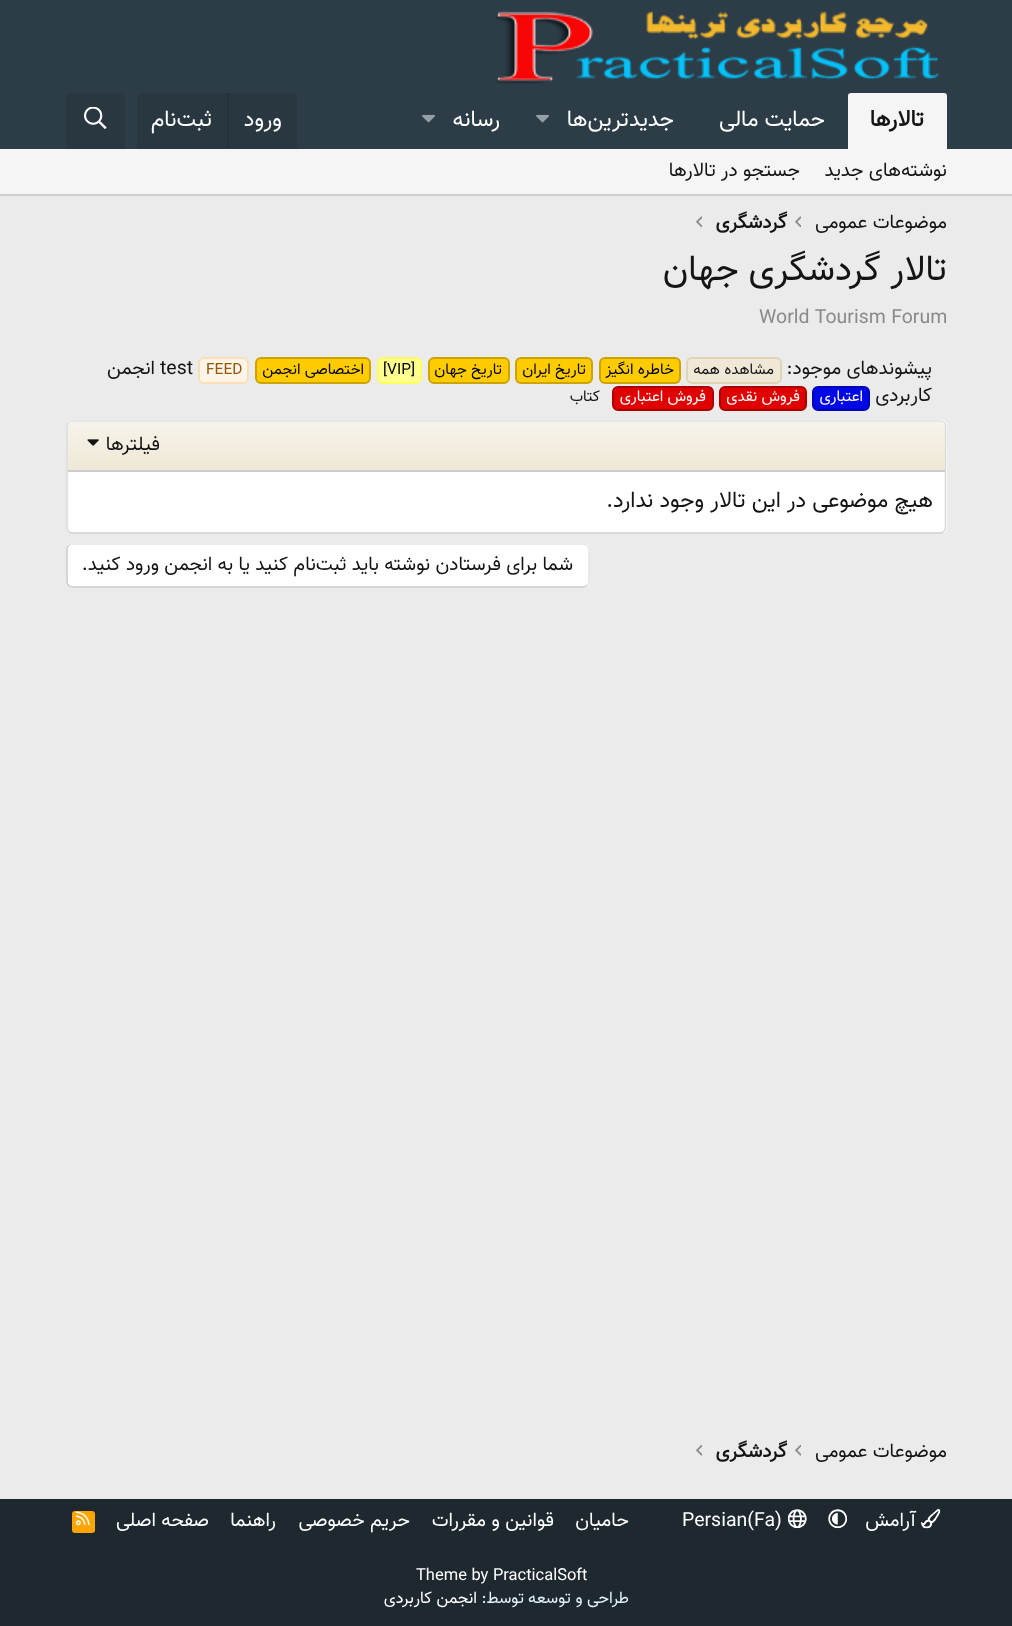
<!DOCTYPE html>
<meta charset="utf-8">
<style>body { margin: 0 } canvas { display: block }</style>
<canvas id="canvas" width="1012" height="1626"></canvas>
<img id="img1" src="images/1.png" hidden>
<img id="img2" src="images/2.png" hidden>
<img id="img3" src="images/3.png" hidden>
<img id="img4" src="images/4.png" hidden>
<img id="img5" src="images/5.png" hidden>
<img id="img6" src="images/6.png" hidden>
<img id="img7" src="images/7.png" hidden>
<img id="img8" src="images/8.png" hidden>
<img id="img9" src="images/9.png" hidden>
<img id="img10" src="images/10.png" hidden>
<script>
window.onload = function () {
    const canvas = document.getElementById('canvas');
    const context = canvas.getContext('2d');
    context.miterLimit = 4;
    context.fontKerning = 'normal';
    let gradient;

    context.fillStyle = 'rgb(235, 235, 235)';
    context.fillRect(0, 0, 1012, 1626);
    context.fillStyle = 'rgb(45, 61, 72)';
    context.fillRect(0, 0, 1012, 149);
    context.drawImage(document.getElementById('img1'), 496, 11, 444, 73);
    context.fillStyle = 'rgb(245, 245, 245)';
    context.beginPath();
    context.roundRect(848, 93, 99, 56, [3, 3, 0, 0]);
    context.fill();
    context.drawImage(document.getElementById('img2'), 536, 114, 13, 9);
    context.drawImage(document.getElementById('img2'), 422, 114, 13, 9);
    context.fillStyle = 'rgb(41, 55, 64)';
    context.beginPath();
    context.roundRect(137, 93, 160, 56, [6, 6, 0, 0]);
    context.fill();
    context.fillStyle = 'rgb(38, 50, 57)';
    context.fillRect(227, 93, 2, 56);
    context.fillStyle = 'rgb(41, 55, 64)';
    context.beginPath();
    context.roundRect(66, 93, 59, 56, [6, 6, 0, 0]);
    context.fill();
    context.drawImage(document.getElementById('img3'), 84, 107, 23, 22);
    context.fillStyle = 'rgb(245, 245, 245)';
    context.fillRect(0, 149, 1012, 45);
    context.fillStyle = 'rgb(204, 204, 204)';
    context.fillRect(0, 194, 1012, 2);
    context.drawImage(document.getElementById('img4'), 795, 216, 6, 12);
    context.drawImage(document.getElementById('img4'), 696, 216, 6, 12);
    context.fillStyle = 'rgb(239, 232, 215)';
    context.beginPath();
    context.roundRect(687, 358, 94, 25, 5);
    context.fill();
    context.strokeStyle = 'rgb(225, 212, 178)';
    context.lineWidth = 2;
    context.stroke();
    context.fillStyle = 'rgb(255, 204, 0)';
    context.beginPath();
    context.roundRect(600, 358, 80, 25, 5);
    context.fill();
    context.strokeStyle = 'rgb(204, 163, 0)';
    context.stroke();
    context.beginPath();
    context.roundRect(516, 358, 76, 25, 5);
    context.fill();
    context.stroke();
    context.beginPath();
    context.roundRect(429, 358, 80, 25, 5);
    context.fill();
    context.stroke();
    context.fillStyle = 'rgb(255, 255, 143)';
    context.beginPath();
    context.roundRect(378, 358, 43, 25, 5);
    context.fill();
    context.strokeStyle = 'rgb(255, 255, 92)';
    context.stroke();
    context.fillStyle = 'rgb(255, 204, 0)';
    context.beginPath();
    context.roundRect(256, 358, 114, 25, 5);
    context.fill();
    context.strokeStyle = 'rgb(204, 163, 0)';
    context.stroke();
    context.fillStyle = 'rgb(254, 244, 231)';
    context.beginPath();
    context.roundRect(199, 358, 49, 25, 5);
    context.fill();
    context.strokeStyle = 'rgb(251, 222, 182)';
    context.stroke();
    context.fillStyle = 'rgb(0, 8, 230)';
    context.beginPath();
    context.roundRect(813, 387, 56, 23, 5);
    context.fill();
    context.strokeStyle = 'rgb(0, 6, 179)';
    context.stroke();
    context.fillStyle = 'rgb(224, 0, 0)';
    context.beginPath();
    context.roundRect(720, 387, 86, 23, 5);
    context.fill();
    context.strokeStyle = 'rgb(173, 0, 0)';
    context.stroke();
    context.beginPath();
    context.roundRect(613, 387, 100, 23, 5);
    context.fill();
    context.stroke();
    context.fillStyle = 'rgb(255, 255, 255)';
    context.beginPath();
    context.roundRect(66, 420, 881, 114, 6);
    context.fill();
    context.beginPath();
    context.moveTo(68.5, 422.5);
    context.bezierCurveTo(69.5, 421.5, 70.5, 421, 72, 421);
    context.lineTo(940.5, 421);
    context.bezierCurveTo(942, 421, 943, 421.5, 944, 422.5);
    context.strokeStyle = 'rgb(224, 224, 224)';
    context.lineWidth = 1.5;
    context.stroke();
    context.beginPath();
    context.moveTo(944, 422.5);
    context.lineTo(945.5, 425.5);
    context.lineTo(945.5, 528.5);
    context.lineTo(944, 531.5);
    context.strokeStyle = 'rgb(214, 214, 214)';
    context.stroke();
    context.beginPath();
    context.moveTo(944, 531.5);
    context.bezierCurveTo(943, 532.5, 942, 533, 940.5, 533);
    context.lineTo(72, 533);
    context.bezierCurveTo(70.5, 533, 69.5, 532.5, 68.5, 531.5);
    context.strokeStyle = 'rgb(204, 204, 204)';
    context.stroke();
    context.beginPath();
    context.moveTo(68.5, 531.5);
    context.lineTo(67, 528.5);
    context.lineTo(67, 425.5);
    context.lineTo(68.5, 422.5);
    context.strokeStyle = 'rgb(214, 214, 214)';
    context.stroke();
    gradient = context.createLinearGradient(506, 470, 506, 422);
    gradient.addColorStop(0, 'rgb(239, 232, 215)');
    gradient.addColorStop(1, 'rgb(246, 243, 233)');
    context.fillStyle = gradient;
    context.beginPath();
    context.roundRect(68, 422, 877, 48, [5, 5, 0, 0]);
    context.fill();
    context.fillStyle = 'rgb(204, 204, 204)';
    context.fillRect(68, 470, 877, 2);
    context.drawImage(document.getElementById('img5'), 87, 439, 12, 7);
    context.fillStyle = 'rgb(255, 255, 255)';
    context.beginPath();
    context.roundRect(66, 543, 524, 45, 6);
    context.fill();
    context.beginPath();
    context.moveTo(68.5, 545.5);
    context.bezierCurveTo(69.5, 544.5, 70.5, 544, 72, 544);
    context.lineTo(583.5, 544);
    context.bezierCurveTo(585, 544, 586, 544.5, 587, 545.5);
    context.bezierCurveTo(588, 546.5, 589, 547.5, 589, 549);
    context.lineTo(589, 582);
    context.bezierCurveTo(589, 583.5, 588, 584.5, 587, 585.5);
    context.strokeStyle = 'rgb(227, 227, 227)';
    context.stroke();
    context.beginPath();
    context.moveTo(587, 585.5);
    context.bezierCurveTo(586, 586.5, 585, 587, 583.5, 587);
    context.lineTo(72, 587);
    context.bezierCurveTo(70.5, 587, 69.5, 586.5, 68.5, 585.5);
    context.bezierCurveTo(67.5, 584.5, 67, 583.5, 67, 582);
    context.lineTo(67, 549);
    context.bezierCurveTo(67, 547.5, 67.5, 546.5, 68.5, 545.5);
    context.strokeStyle = 'rgb(201, 201, 201)';
    context.stroke();
    context.drawImage(document.getElementById('img6'), 795, 1444, 6, 12);
    context.drawImage(document.getElementById('img6'), 696, 1444, 6, 12);
    context.fillStyle = 'rgb(29, 40, 47)';
    context.fillRect(0, 1499, 1012, 127);
    context.drawImage(document.getElementById('img7'), 921, 1509, 20, 20);
    context.drawImage(document.getElementById('img8'), 828, 1509, 20, 20);
    context.drawImage(document.getElementById('img9'), 787, 1509, 20, 20);
    context.fillStyle = 'rgb(255, 165, 0)';
    context.beginPath();
    context.roundRect(72, 1511, 23, 22, 3);
    context.fill();
    context.drawImage(document.getElementById('img10'), 76, 1511, 14, 14);
    context.direction = 'rtl';
    context.font = 'bold 22.5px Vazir';
    context.fillStyle = 'rgb(20, 20, 20)';
    context.fillText('تالارها', 924, 126);
    context.font = '22.5px Vazir';
    context.fillStyle = 'rgb(255, 255, 255)';
    context.fillText('حمایت مالی', 825, 126);
    context.fillText('جدیدترین‌ها', 674, 126);
    context.fillText('رسانه', 500, 126);
    context.fillText('ورود', 282, 126);
    context.fillText('ثبت‌نام', 212, 126);
    context.font = '19.5px Vazir';
    context.fillStyle = 'rgb(20, 20, 20)';
    context.fillText('نوشته‌های جدید', 947, 176);
    context.fillText('جستجو در تالارها', 800, 176);
    context.fillText('موضوعات عمومی', 947, 228);
    context.font = 'bold 19.5px Vazir';
    context.fillText('گردشگری', 787, 228);
    context.font = '36px Vazir';
    context.fillText('تالار گردشگری جهان', 947, 280);
    context.direction = 'ltr';
    context.font = '19.5px Vazir';
    context.fillStyle = 'rgb(138, 138, 138)';
    context.fillText('World Tourism Forum', 759, 323);
    context.direction = 'rtl';
    context.fillStyle = 'rgb(20, 20, 20)';
    context.fillText('پیشوندهای موجود:', 932, 374);
    context.font = '15.5px Vazir';
    context.fillText('مشاهده همه', 774, 374);
    context.fillStyle = 'rgb(0, 0, 0)';
    context.fillText('خاطره انگیز', 674, 374);
    context.fillText('تاریخ ایران', 586, 374);
    context.fillText('تاریخ جهان', 502, 374);
    context.direction = 'ltr';
    context.fillText('[VIP]', 383, 374);
    context.direction = 'rtl';
    context.fillText('اختصاصی انجمن', 364, 374);
    context.direction = 'ltr';
    context.fillStyle = 'rgb(145, 88, 8)';
    context.fillText('FEED', 206, 374);
    context.font = '19.5px Vazir';
    context.fillStyle = 'rgb(20, 20, 20)';
    context.fillText('test', 160, 374);
    context.direction = 'rtl';
    context.fillText('انجمن', 155, 374);
    context.fillText('کاربردی', 932, 401);
    context.font = '15.5px Vazir';
    context.fillStyle = 'rgb(255, 255, 255)';
    context.fillText('اعتباری', 863, 401);
    context.fillText('فروش نقدی', 800, 401);
    context.fillText('فروش اعتباری', 706, 401);
    context.fillStyle = 'rgb(20, 20, 20)';
    context.fillText('کتاب', 600, 401);
    context.font = '19.5px Vazir';
    context.fillText('فیلترها', 160, 450);
    context.font = '22.5px Vazir';
    context.fillText('هیچ موضوعی در این تالار وجود ندارد.', 933, 507);
    context.font = '19.5px Vazir';
    context.fillText('شما برای فرستادن نوشته باید ثبت‌نام کنید یا به انجمن ورود کنید.', 573, 570);
    context.fillText('موضوعات عمومی', 947, 1457);
    context.font = 'bold 19.5px Vazir';
    context.fillText('گردشگری', 787, 1457);
    context.font = '19.5px Vazir';
    context.fillStyle = 'rgb(255, 255, 255)';
    context.fillText('آرامش', 916, 1526);
    context.direction = 'ltr';
    context.fillText('Persian(Fa)', 682, 1526);
    context.direction = 'rtl';
    context.fillText('حامیان', 629, 1526);
    context.fillText('قوانین و مقررات', 554, 1526);
    context.fillText('حریم خصوصی', 410, 1526);
    context.fillText('راهنما', 276, 1526);
    context.fillText('صفحه اصلی', 209, 1526);
    context.direction = 'ltr';
    context.font = '16.5px Vazir';
    context.fillText('Theme by PracticalSoft', 416, 1580);
    context.direction = 'rtl';
    context.fillStyle = 'rgb(232, 244, 252)';
    context.fillText('طراحی و توسعه', 629, 1603);
    context.fillText('توسط:', 524, 1603);
    context.fillStyle = 'rgb(255, 255, 255)';
    context.fillText('انجمن کاربردی', 477, 1603);
};
</script>
